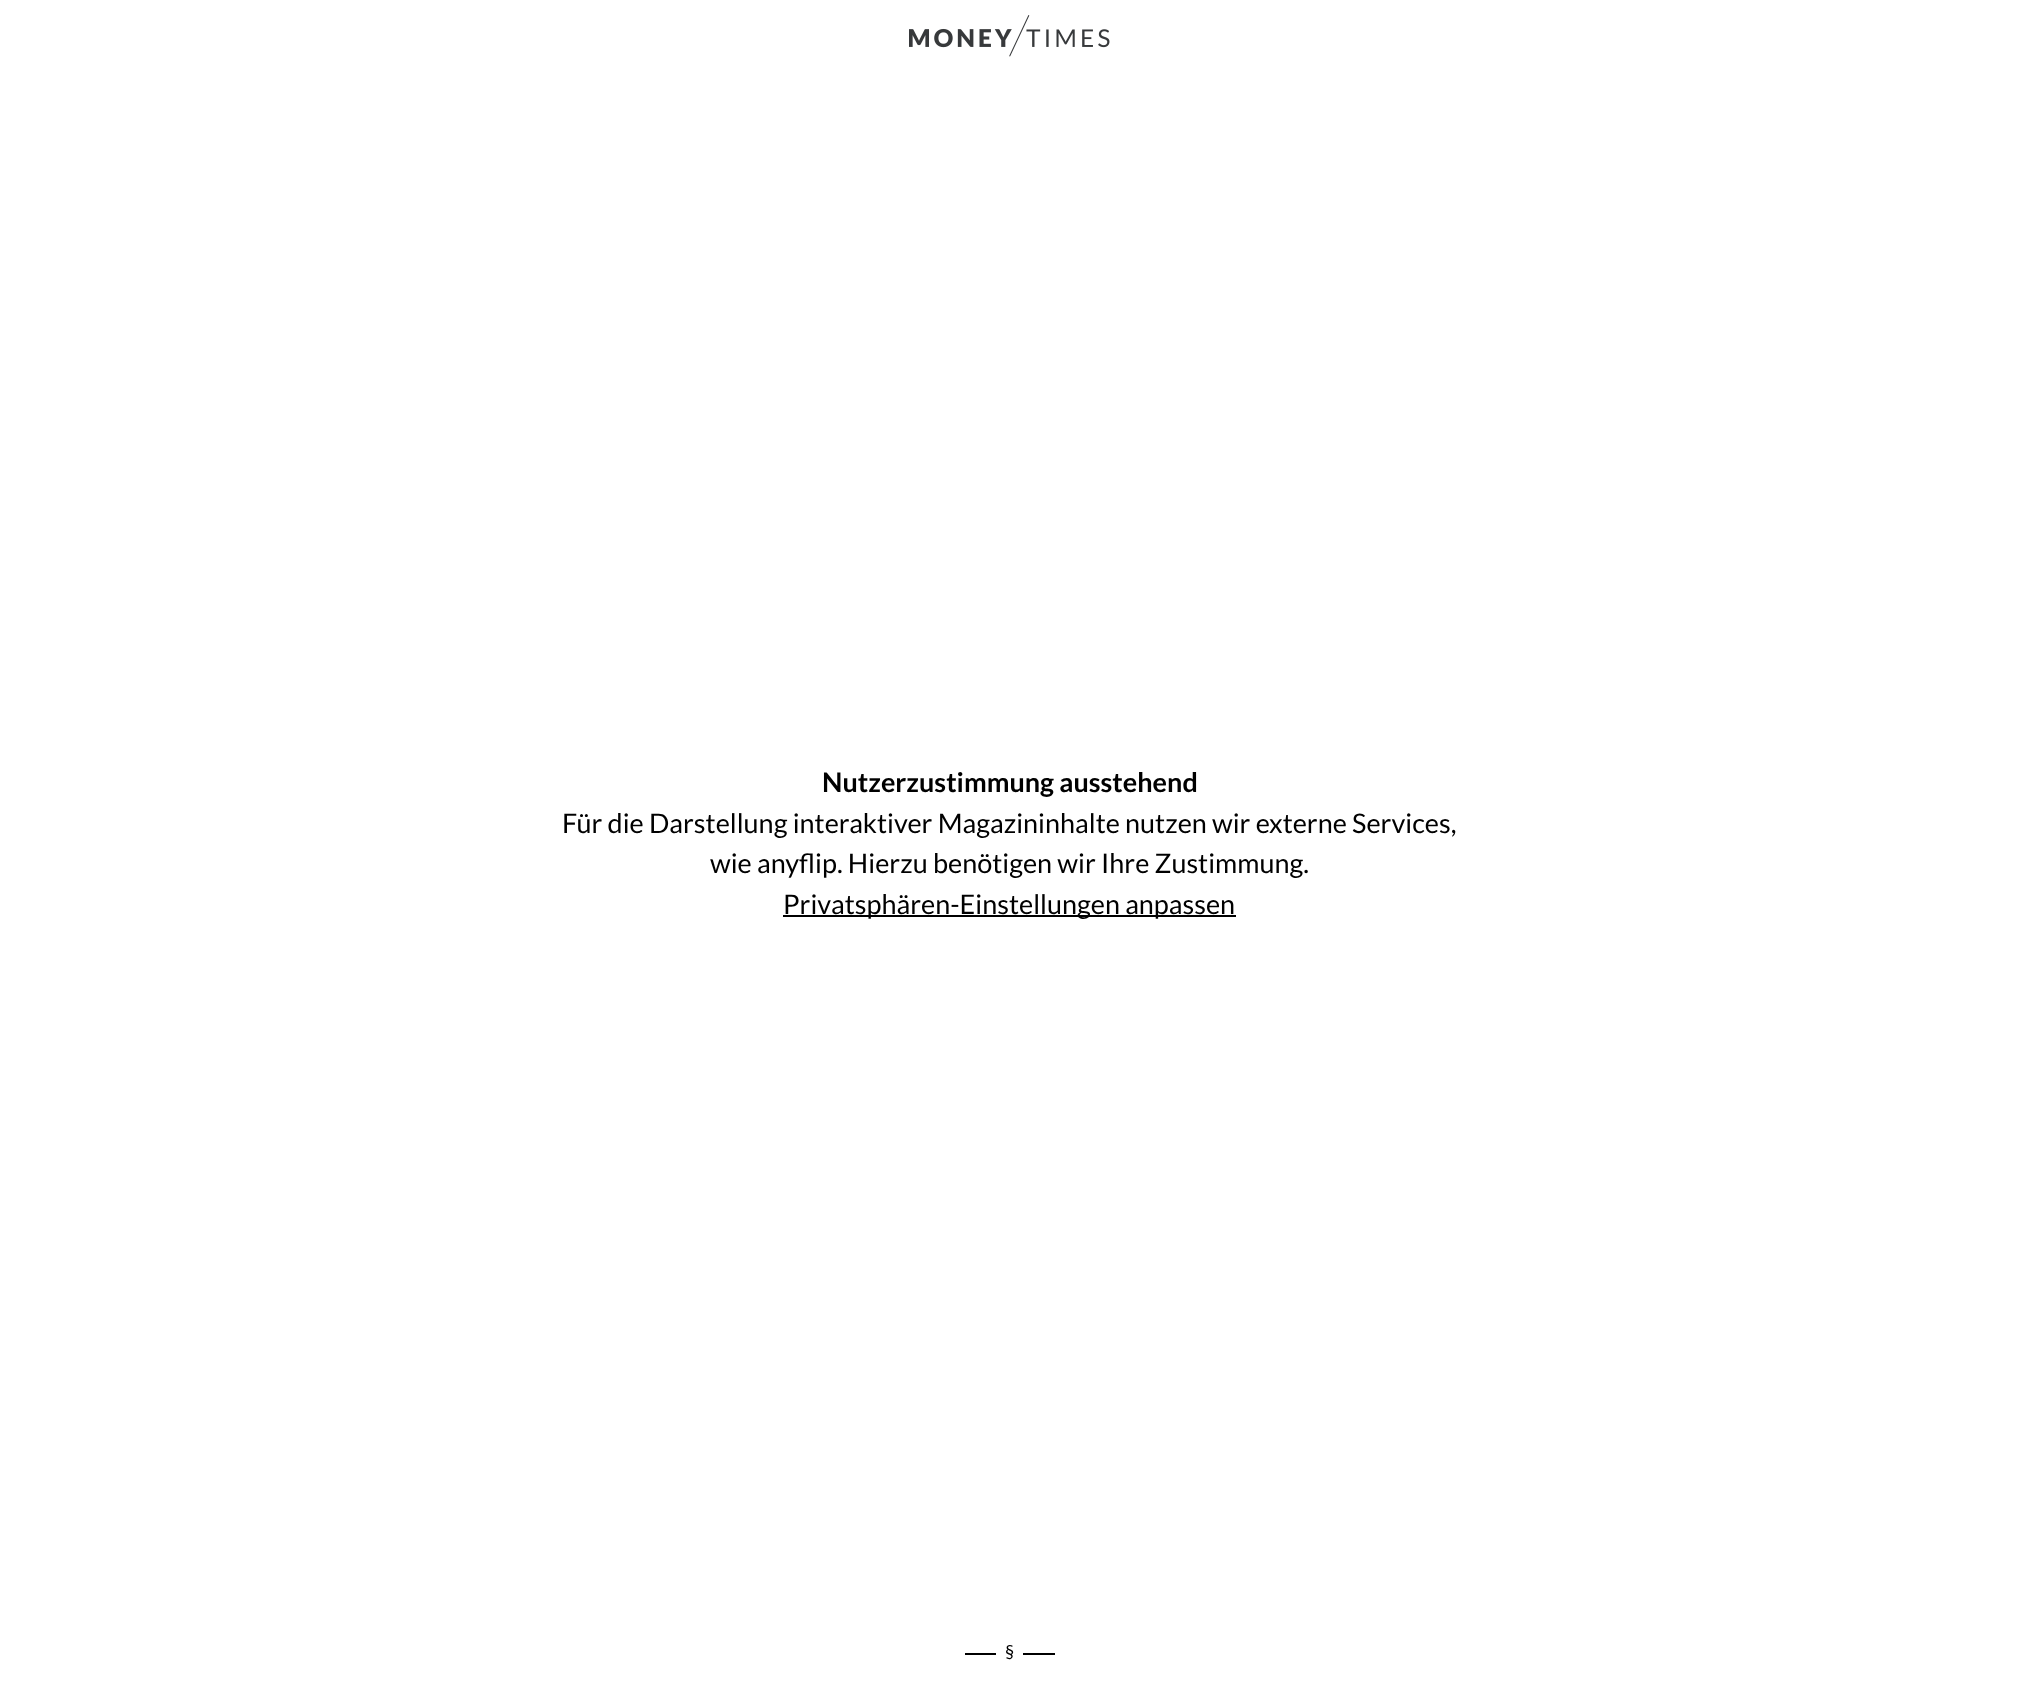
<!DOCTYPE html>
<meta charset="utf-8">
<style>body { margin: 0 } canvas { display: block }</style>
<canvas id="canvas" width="2018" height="1685"></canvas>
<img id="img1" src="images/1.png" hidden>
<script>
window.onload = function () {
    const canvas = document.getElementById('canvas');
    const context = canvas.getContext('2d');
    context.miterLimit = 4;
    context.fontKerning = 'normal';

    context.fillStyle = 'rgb(255, 255, 255)';
    context.fillRect(0, 0, 2018, 1685);
    context.drawImage(document.getElementById('img1'), 909, 15, 201, 42);
    context.fillStyle = 'rgb(0, 0, 0)';
    context.fillRect(783, 915, 453, 2);
    context.fillRect(965, 1653, 90, 2);
    context.fillStyle = 'rgb(255, 255, 255)';
    context.fillRect(996, 1653, 27, 2);
    context.font = 'bold 27px Lato';
    context.fillStyle = 'rgb(0, 0, 0)';
    context.fillText('Nutzerzustimmung ausstehend', 822, 792);
    context.font = '27px Lato';
    context.fillText('Für die Darstellung interaktiver Magazininhalte nutzen wir externe Services,', 562, 833);
    context.fillText('wie anyflip. Hierzu benötigen wir Ihre Zustimmung.', 710, 873);
    context.fillText('Privatsphären-Einstellungen anpassen', 783, 914);
    context.font = '18px Lato';
    context.fillText('§', 1005, 1658);
};
</script>
